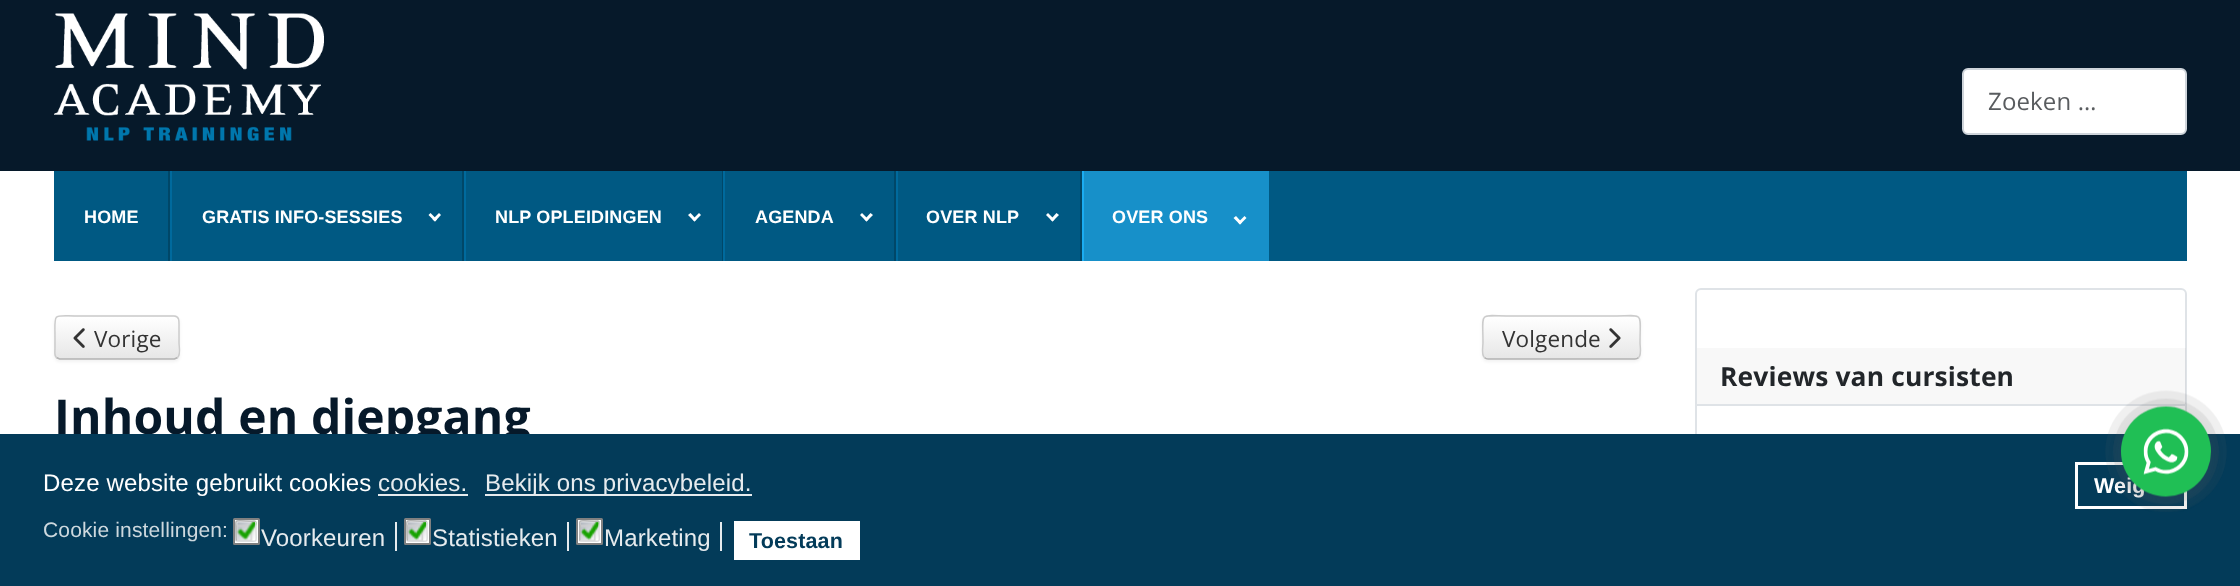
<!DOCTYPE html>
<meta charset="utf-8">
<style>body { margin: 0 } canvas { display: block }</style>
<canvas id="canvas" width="2240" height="586"></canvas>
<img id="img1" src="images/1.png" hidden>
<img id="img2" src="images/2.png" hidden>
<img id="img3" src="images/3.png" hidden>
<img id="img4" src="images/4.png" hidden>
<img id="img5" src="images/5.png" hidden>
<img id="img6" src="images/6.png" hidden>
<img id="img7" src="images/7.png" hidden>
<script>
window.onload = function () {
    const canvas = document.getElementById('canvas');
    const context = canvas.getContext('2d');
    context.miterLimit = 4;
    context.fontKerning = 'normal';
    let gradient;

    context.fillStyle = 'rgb(255, 255, 255)';
    context.fillRect(0, 0, 2240, 586);
    context.fillStyle = 'rgb(6, 25, 42)';
    context.fillRect(0, 0, 2240, 171);
    context.drawImage(document.getElementById('img1'), 54, 13, 270, 128);
    context.fillStyle = 'rgb(255, 255, 255)';
    context.beginPath();
    context.roundRect(1963, 69, 223, 65, 5);
    context.fill();
    context.strokeStyle = 'rgb(206, 212, 218)';
    context.lineWidth = 2;
    context.stroke();
    context.fillStyle = 'rgb(0, 89, 131)';
    context.fillRect(54, 171, 2133, 90);
    context.fillStyle = 'rgb(0, 71, 104)';
    context.fillRect(168, 171, 2, 90);
    context.fillRect(462, 171, 2, 90);
    context.fillStyle = 'rgb(0, 106, 157)';
    context.fillRect(170, 171, 2, 90);
    context.fillStyle = 'rgb(255, 255, 255)';
    context.beginPath();
    context.moveTo(439, 213);
    context.lineTo(441, 215);
    context.lineTo(435, 221.5);
    context.lineTo(432.5, 219.5);
    context.closePath();
    context.fill();
    context.beginPath();
    context.moveTo(430.5, 213);
    context.lineTo(437, 219.5);
    context.lineTo(435, 221.5);
    context.lineTo(428.5, 215);
    context.closePath();
    context.fill();
    context.fillStyle = 'rgb(0, 71, 104)';
    context.fillRect(722, 171, 1, 90);
    context.fillStyle = 'rgb(0, 106, 157)';
    context.fillRect(464, 171, 2, 90);
    context.fillStyle = 'rgb(255, 255, 255)';
    context.beginPath();
    context.moveTo(699, 213);
    context.lineTo(701, 215);
    context.lineTo(694.5, 221.5);
    context.lineTo(692.5, 219.5);
    context.closePath();
    context.fill();
    context.beginPath();
    context.moveTo(690.5, 213);
    context.lineTo(696.5, 219.5);
    context.lineTo(694.5, 221.5);
    context.lineTo(688, 215);
    context.closePath();
    context.fill();
    context.fillStyle = 'rgb(0, 71, 104)';
    context.fillRect(894, 171, 2, 90);
    context.fillStyle = 'rgb(0, 106, 157)';
    context.fillRect(723, 171, 2, 90);
    context.fillStyle = 'rgb(255, 255, 255)';
    context.beginPath();
    context.moveTo(870.5, 213);
    context.lineTo(873, 215);
    context.lineTo(866.5, 221.5);
    context.lineTo(864.5, 219.5);
    context.closePath();
    context.fill();
    context.beginPath();
    context.moveTo(862, 213);
    context.lineTo(868.5, 219.5);
    context.lineTo(866.5, 221.5);
    context.lineTo(860, 215);
    context.closePath();
    context.fill();
    context.fillStyle = 'rgb(0, 71, 104)';
    context.fillRect(1080, 171, 2, 90);
    context.fillStyle = 'rgb(0, 106, 157)';
    context.fillRect(896, 171, 2, 90);
    context.fillStyle = 'rgb(255, 255, 255)';
    context.beginPath();
    context.moveTo(1056.5, 213);
    context.lineTo(1059, 215);
    context.lineTo(1052.5, 221.5);
    context.lineTo(1050.5, 219.5);
    context.closePath();
    context.fill();
    context.beginPath();
    context.moveTo(1048, 213);
    context.lineTo(1054.5, 219.5);
    context.lineTo(1052.5, 221.5);
    context.lineTo(1046, 215);
    context.closePath();
    context.fill();
    context.fillStyle = 'rgb(23, 144, 201)';
    context.fillRect(1084, 171, 185, 90);
    context.fillStyle = 'rgb(27, 172, 241)';
    context.fillRect(1082, 171, 2, 90);
    context.fillStyle = 'rgb(255, 255, 255)';
    context.beginPath();
    context.moveTo(1244.5, 216);
    context.lineTo(1246.5, 218);
    context.lineTo(1240, 224.5);
    context.lineTo(1238, 222.5);
    context.closePath();
    context.fill();
    context.beginPath();
    context.moveTo(1236, 216);
    context.lineTo(1242, 222.5);
    context.lineTo(1240, 224.5);
    context.lineTo(1233.5, 218);
    context.closePath();
    context.fill();
    context.fillStyle = 'rgba(0, 0, 0, 0.05)';
    context.filter = 'blur(1.5px)';
    context.beginPath();
    context.roundRect(54, 317, 126, 45, 6);
    context.fill();
    context.filter = 'none';
    context.fillStyle = 'rgb(245, 245, 245)';
    context.beginPath();
    context.roundRect(54, 315, 126, 45, 6);
    context.fill();
    context.save();
    context.beginPath();
    context.roundRect(54, 315, 126, 45, 6);
    context.clip();
    gradient = context.createLinearGradient(117, 317, 117, 359);
    gradient.addColorStop(0, 'rgb(255, 255, 255)');
    gradient.addColorStop(1, 'rgb(230, 230, 230)');
    context.fillStyle = gradient;
    context.fillRect(54, 317, 126, 42);
    context.restore();
    context.fillStyle = 'rgba(255, 255, 255, 0.2)';
    context.beginPath();
    context.moveTo(60, 318);
    context.lineTo(155, 318);
    context.bezierCurveTo(179, 318, 178, 313, 178, 333);
    context.lineTo(178, 357);
    context.bezierCurveTo(179, 356, 179, 355, 179, 354);
    context.lineTo(179, 322);
    context.bezierCurveTo(179, 319, 177, 317, 174, 317);
    context.lineTo(61, 317);
    context.bezierCurveTo(58, 317, 56, 319, 56, 322);
    context.bezierCurveTo(56, 320, 58, 318, 60, 318);
    context.closePath();
    context.fill();
    context.beginPath();
    context.moveTo(177.5, 357.5);
    context.lineTo(174.5, 359);
    context.lineTo(59.5, 359);
    context.lineTo(56.5, 357.5);
    context.strokeStyle = 'rgb(179, 179, 179)';
    context.lineWidth = 1.5;
    context.stroke();
    context.beginPath();
    context.moveTo(56.5, 357.5);
    context.bezierCurveTo(54, 355.5, 55, 351.5, 55, 348.5);
    context.lineTo(55, 337.5);
    context.bezierCurveTo(55, 311.5, 51.5, 316, 79, 316);
    context.lineTo(174, 316);
    context.bezierCurveTo(180, 316, 179, 322.5, 179, 326.5);
    context.lineTo(179, 343);
    context.bezierCurveTo(179, 346.5, 181, 354.5, 177.5, 357.5);
    context.strokeStyle = 'rgb(204, 204, 204)';
    context.stroke();
    context.drawImage(document.getElementById('img2'), 73, 328, 12, 20);
    context.fillStyle = 'rgba(0, 0, 0, 0.05)';
    context.filter = 'blur(1.5px)';
    context.beginPath();
    context.roundRect(1482, 317, 159, 45, 6);
    context.fill();
    context.filter = 'none';
    context.fillStyle = 'rgb(245, 245, 245)';
    context.beginPath();
    context.roundRect(1482, 315, 159, 45, 6);
    context.fill();
    context.save();
    context.beginPath();
    context.roundRect(1482, 315, 159, 45, 6);
    context.clip();
    gradient = context.createLinearGradient(1562, 317, 1562, 359);
    gradient.addColorStop(0, 'rgb(255, 255, 255)');
    gradient.addColorStop(1, 'rgb(230, 230, 230)');
    context.fillStyle = gradient;
    context.fillRect(1482, 317, 159, 42);
    context.restore();
    context.beginPath();
    context.moveTo(1638.5, 357.5);
    context.bezierCurveTo(1637.5, 358.5, 1636.5, 359, 1635, 359);
    context.lineTo(1488, 359);
    context.bezierCurveTo(1486.5, 359, 1485.5, 358.5, 1484.5, 357.5);
    context.strokeStyle = 'rgb(179, 179, 179)';
    context.stroke();
    context.beginPath();
    context.moveTo(1484.5, 357.5);
    context.bezierCurveTo(1481, 354.5, 1483, 346.5, 1483, 343);
    context.bezierCurveTo(1483, 310, 1477.5, 316, 1512.5, 316);
    context.lineTo(1610.5, 316);
    context.bezierCurveTo(1645.5, 316, 1640, 310, 1640, 343);
    context.bezierCurveTo(1640, 346.5, 1642, 354.5, 1638.5, 357.5);
    context.strokeStyle = 'rgb(204, 204, 204)';
    context.stroke();
    context.drawImage(document.getElementById('img3'), 1609, 328, 12, 20);
    context.beginPath();
    context.roundRect(1696, 289, 490, 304, 5);
    context.strokeStyle = 'rgb(223, 227, 231)';
    context.lineWidth = 2;
    context.stroke();
    context.fillStyle = 'rgba(34, 38, 42, 0.03)';
    context.fillRect(1697, 348, 489, 56);
    context.fillStyle = 'rgb(223, 227, 231)';
    context.fillRect(1697, 404, 489, 2);
    context.letterSpacing = '0.15px';
    context.font = '24px Open Sans';
    context.fillStyle = 'rgb(89, 92, 95)';
    context.fillText('Zoeken …', 1988, 110);
    context.font = 'bold 18px Liberation Sans';
    context.fillStyle = 'rgb(255, 255, 255)';
    context.fillText('HOME', 84, 223);
    context.fillText('GRATIS INFO-SESSIES', 202, 223);
    context.fillText('NLP OPLEIDINGEN', 495, 223);
    context.fillText('AGENDA', 755, 223);
    context.fillText('OVER NLP', 926, 223);
    context.fillText('OVER ONS', 1112, 223);
    context.font = '22.5px Open Sans';
    context.fillStyle = 'rgb(51, 51, 51)';
    context.fillText('Vorige', 94, 347);
    context.fillText('Volgende', 1502, 347);
    context.font = 'bold 48px Open Sans';
    context.fillStyle = 'rgb(6, 25, 42)';
    context.fillText('Inhoud en diepgang', 54, 434);
    context.font = 'bold 26.4px Open Sans';
    context.fillStyle = 'rgb(34, 38, 42)';
    context.fillText('Reviews van cursisten', 1720, 386);
    context.fillStyle = 'rgb(3, 59, 89)';
    context.fillRect(0, 434, 2240, 152);
    context.font = '24px Liberation Sans';
    context.fillStyle = 'rgb(255, 255, 255)';
    context.fillText('Deze website gebruikt cookies', 43, 491);
    context.fillStyle = 'rgb(230, 235, 238)';
    context.fillText('cookies.', 378, 491);
    context.fillRect(378, 494, 90, 2);
    context.fillRect(485, 494, 267, 2);
    context.fillText('Bekijk ons privacybeleid.', 485, 491);
    context.strokeStyle = 'rgb(255, 255, 255)';
    context.lineWidth = 3;
    context.strokeRect(2076.5, 463.5, 109, 44);
    context.font = 'bold 21.5px Liberation Sans';
    context.fillStyle = 'rgb(255, 255, 255)';
    context.fillText('Weig', 2094, 493);
    context.drawImage(document.getElementById('img4'), 2105, 390, 122, 122);
    context.font = '21px Liberation Sans';
    context.fillStyle = 'rgb(205, 216, 222)';
    context.fillText('Cookie instellingen:', 43, 537);
    context.fillStyle = 'rgb(255, 255, 255)';
    context.beginPath();
    context.roundRect(234, 519, 25, 25, 0.5);
    context.fill();
    context.strokeStyle = 'rgb(128, 128, 128)';
    context.lineWidth = 2;
    context.stroke();
    context.drawImage(document.getElementById('img5'), 235, 520, 22, 22);
    context.beginPath();
    context.moveTo(255.5, 521.5);
    context.bezierCurveTo(256, 522, 256, 529.5, 256, 531);
    context.bezierCurveTo(256, 543.5, 258.5, 541, 246, 541);
    context.bezierCurveTo(244.5, 541, 237, 541, 236.5, 540.5);
    context.strokeStyle = 'rgb(220, 221, 222)';
    context.lineWidth = 1.5;
    context.stroke();
    context.beginPath();
    context.moveTo(236.5, 540.5);
    context.bezierCurveTo(236, 540, 236, 532.5, 236, 531);
    context.bezierCurveTo(236, 518.5, 233.5, 521, 246, 521);
    context.bezierCurveTo(247.5, 521, 255, 521, 255.5, 521.5);
    context.strokeStyle = 'rgb(179, 179, 179)';
    context.stroke();
    context.fillStyle = 'rgb(230, 235, 238)';
    context.fillRect(395, 522, 2, 29);
    context.font = '24px Liberation Sans';
    context.fillText('Voorkeuren', 261, 546);
    context.fillStyle = 'rgb(255, 255, 255)';
    context.beginPath();
    context.roundRect(405, 519, 25, 25, 0.5);
    context.fill();
    context.strokeStyle = 'rgb(128, 128, 128)';
    context.lineWidth = 2;
    context.stroke();
    context.drawImage(document.getElementById('img6'), 406, 520, 22, 22);
    context.beginPath();
    context.moveTo(426.5, 521.5);
    context.bezierCurveTo(427, 522, 427, 529.5, 427, 531);
    context.bezierCurveTo(427, 543.5, 429.5, 541, 417, 541);
    context.bezierCurveTo(415.5, 541, 408, 541, 407.5, 540.5);
    context.strokeStyle = 'rgb(220, 221, 222)';
    context.lineWidth = 1.5;
    context.stroke();
    context.beginPath();
    context.moveTo(407.5, 540.5);
    context.bezierCurveTo(407, 540, 407, 532.5, 407, 531);
    context.bezierCurveTo(407, 518.5, 404.5, 521, 417, 521);
    context.bezierCurveTo(418.5, 521, 426, 521, 426.5, 521.5);
    context.strokeStyle = 'rgb(179, 179, 179)';
    context.stroke();
    context.fillStyle = 'rgb(230, 235, 238)';
    context.fillRect(567, 522, 2, 29);
    context.fillText('Statistieken', 432, 546);
    context.fillStyle = 'rgb(255, 255, 255)';
    context.beginPath();
    context.roundRect(577, 519, 25, 25, 0.5);
    context.fill();
    context.strokeStyle = 'rgb(128, 128, 128)';
    context.lineWidth = 2;
    context.stroke();
    context.drawImage(document.getElementById('img7'), 579, 520, 21, 22);
    context.beginPath();
    context.moveTo(599, 521.5);
    context.bezierCurveTo(599.5, 522, 599, 529.5, 599, 531);
    context.bezierCurveTo(599, 543.5, 602, 541, 589.5, 541);
    context.bezierCurveTo(588, 541, 580.5, 541, 580, 540.5);
    context.strokeStyle = 'rgb(220, 221, 222)';
    context.lineWidth = 1.5;
    context.stroke();
    context.beginPath();
    context.moveTo(580, 540.5);
    context.bezierCurveTo(579.5, 540, 580, 532.5, 580, 531);
    context.bezierCurveTo(580, 518.5, 577, 521, 589.5, 521);
    context.bezierCurveTo(591, 521, 598.5, 521, 599, 521.5);
    context.strokeStyle = 'rgb(179, 179, 179)';
    context.stroke();
    context.fillStyle = 'rgb(230, 235, 238)';
    context.fillRect(720, 522, 2, 29);
    context.fillText('Marketing', 604, 546);
    context.fillStyle = 'rgb(255, 255, 255)';
    context.fillRect(734, 521, 126, 39);
    context.font = 'bold 21.5px Liberation Sans';
    context.fillStyle = 'rgb(3, 59, 89)';
    context.fillText('Toestaan', 749, 548);
};
</script>
